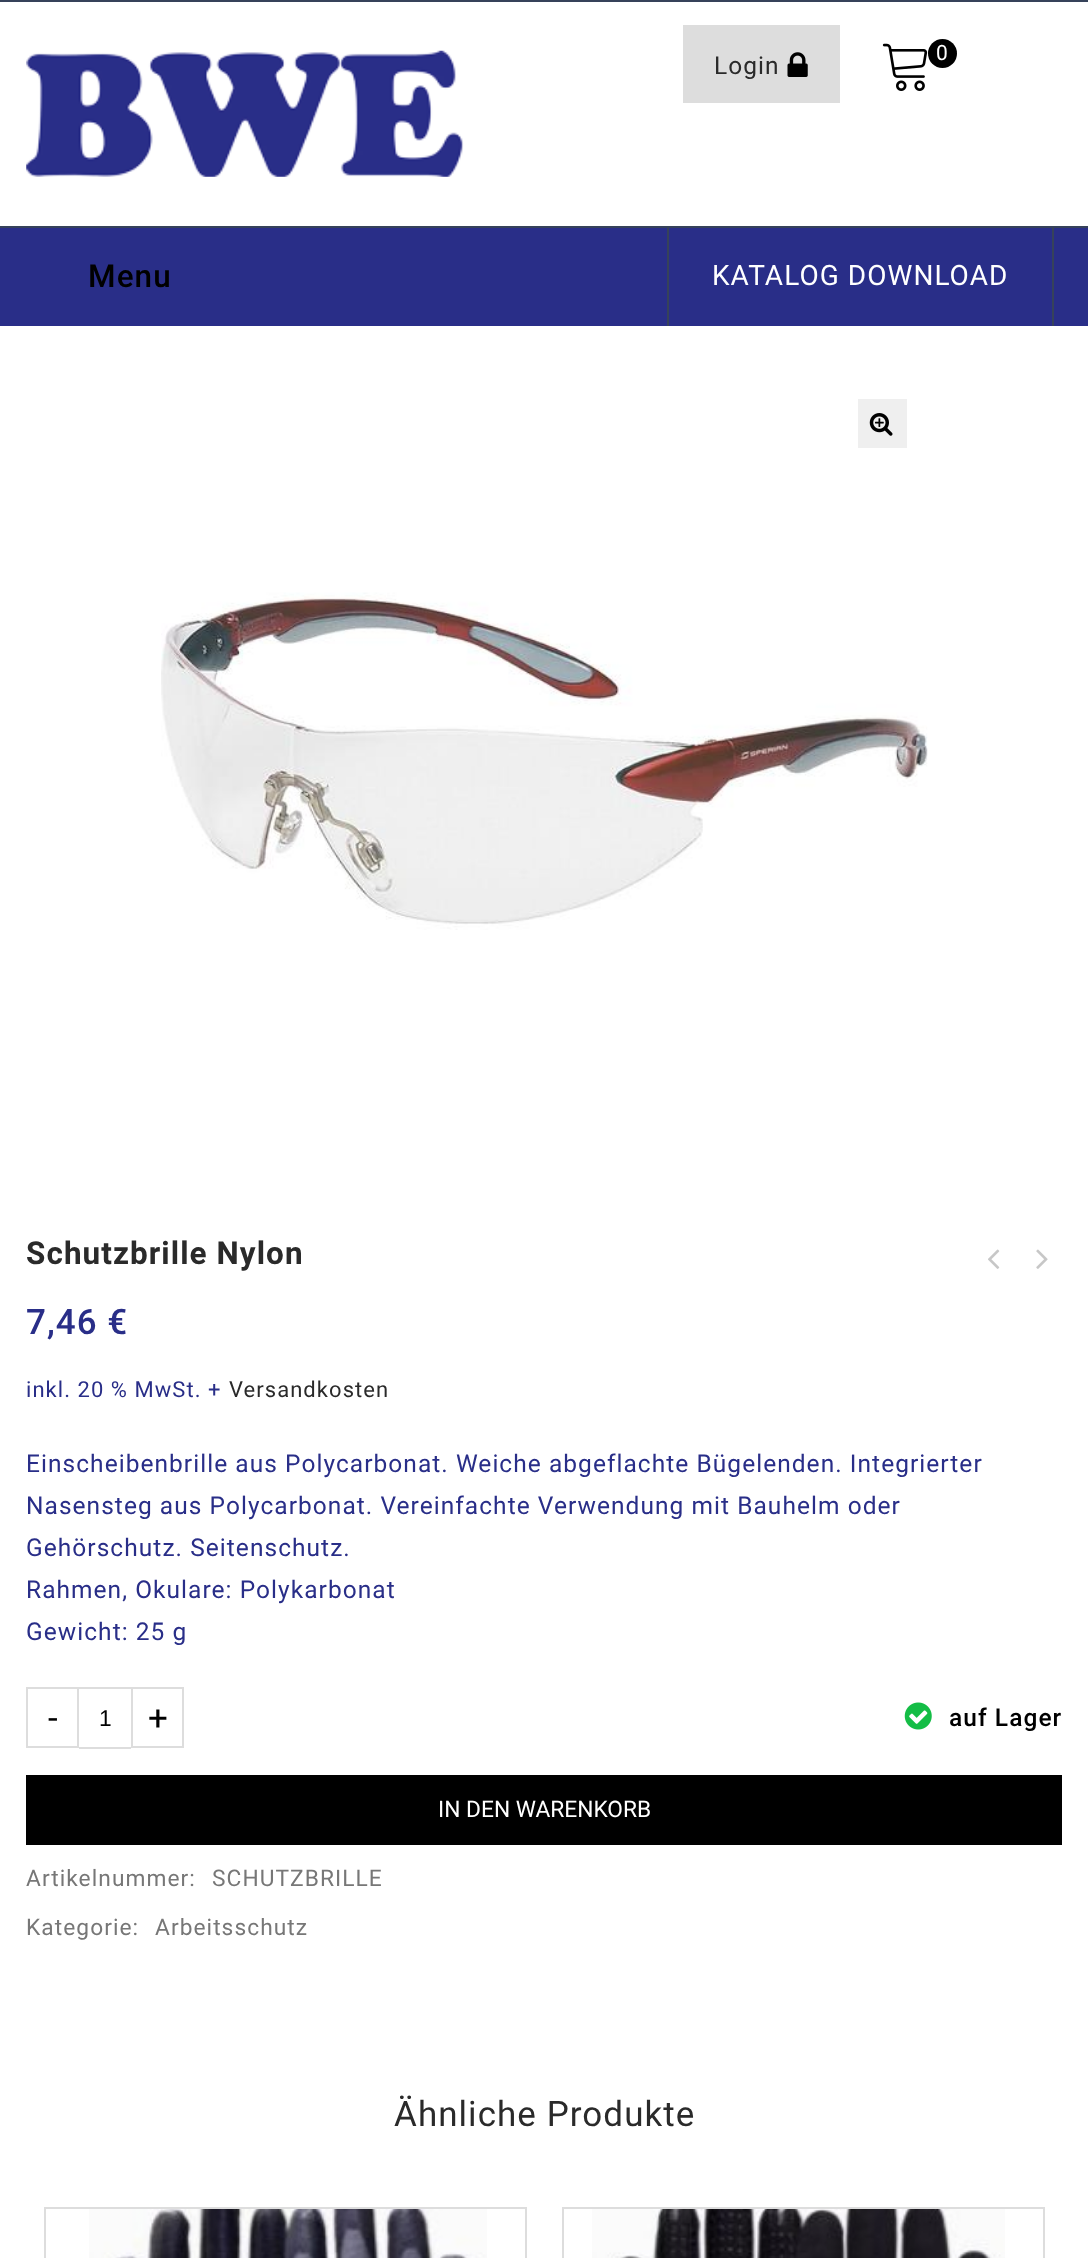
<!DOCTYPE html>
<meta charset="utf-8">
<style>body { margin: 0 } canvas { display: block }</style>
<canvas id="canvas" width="1088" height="2258"></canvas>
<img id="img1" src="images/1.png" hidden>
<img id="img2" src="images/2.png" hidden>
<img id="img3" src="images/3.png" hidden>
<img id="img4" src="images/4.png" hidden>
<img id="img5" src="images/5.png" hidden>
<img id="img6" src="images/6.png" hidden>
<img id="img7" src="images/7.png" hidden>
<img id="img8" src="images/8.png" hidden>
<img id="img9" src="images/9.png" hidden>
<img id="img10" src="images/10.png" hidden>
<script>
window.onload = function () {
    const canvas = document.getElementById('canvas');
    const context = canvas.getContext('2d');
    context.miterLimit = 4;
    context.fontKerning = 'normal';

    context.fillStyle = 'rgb(255, 255, 255)';
    context.fillRect(0, 0, 1088, 2258);
    context.fillStyle = 'rgb(54, 66, 90)';
    context.fillRect(0, 0, 1088, 2);
    context.drawImage(document.getElementById('img1'), 26, 50, 438, 127);
    context.drawImage(document.getElementById('img2'), 882, 43, 46, 48);
    context.fillStyle = 'rgb(0, 0, 0)';
    context.beginPath();
    context.arc(942.5, 53.5, 14.5, 0, 2 * Math.PI);
    context.fill();
    context.fillStyle = 'rgb(221, 221, 221)';
    context.fillRect(683, 25, 157, 78);
    context.drawImage(document.getElementById('img3'), 787, 52, 21, 25);
    context.fillStyle = 'rgb(41, 46, 136)';
    context.fillRect(0, 228, 1088, 98);
    context.fillStyle = 'rgb(54, 66, 90)';
    context.fillRect(0, 226, 1088, 2);
    context.fillRect(1052, 228, 2, 98);
    context.fillRect(667, 228, 2, 98);
    context.fillStyle = 'rgb(239, 239, 239)';
    context.fillRect(858, 399, 49, 49);
    context.drawImage(document.getElementById('img4'), 869, 413, 24, 23);
    context.drawImage(document.getElementById('img5'), 161, 592, 767, 338);
    context.drawImage(document.getElementById('img6'), 988, 1249, 12, 20);
    context.drawImage(document.getElementById('img7'), 1036, 1249, 12, 20);
    context.strokeStyle = 'rgb(221, 221, 221)';
    context.lineWidth = 2;
    context.strokeRect(27, 1688, 51, 59);
    context.fillStyle = 'rgb(221, 221, 221)';
    context.fillRect(79, 1687, 52, 2);
    context.fillRect(79, 1747, 52, 2);
    context.strokeRect(132, 1688, 51, 59);
    context.fillStyle = 'rgb(0, 0, 0)';
    context.fillRect(26, 1775, 1036, 70);
    context.drawImage(document.getElementById('img8'), 904, 1702, 28, 28);
    context.strokeRect(45, 2208, 481, 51);
    context.drawImage(document.getElementById('img9'), 89, 2209, 398, 49);
    context.strokeRect(563, 2208, 481, 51);
    context.drawImage(document.getElementById('img10'), 592, 2209, 413, 49);
    context.letterSpacing = '1.05px';
    context.font = '21px Roboto';
    context.fillStyle = 'rgb(255, 255, 255)';
    context.fillText('0', 936, 60);
    context.font = '24.5px Roboto';
    context.fillStyle = 'rgb(42, 42, 42)';
    context.fillText('Login', 714, 74);
    context.font = '500 31.5px Roboto';
    context.fillStyle = 'rgb(0, 0, 0)';
    context.fillText('Menu', 88, 287);
    context.font = '28px Roboto';
    context.fillStyle = 'rgb(255, 255, 255)';
    context.fillText('KATALOG DOWNLOAD', 712, 285);
    context.font = 'bold 31.5px Roboto';
    context.fillStyle = 'rgb(42, 42, 42)';
    context.fillText('Schutzbrille Nylon', 26, 1264);
    context.font = '500 35px Roboto';
    context.fillStyle = 'rgb(41, 46, 136)';
    context.fillText('7,46 €', 26, 1334);
    context.font = '22px Roboto';
    context.fillText('inkl. 20 % MwSt. +', 26, 1397);
    context.fillStyle = 'rgb(42, 42, 42)';
    context.fillText('Versandkosten', 229, 1397);
    context.font = '24.5px Roboto';
    context.fillStyle = 'rgb(41, 46, 136)';
    context.fillText('Einscheibenbrille aus Polycarbonat. Weiche abgeflachte Bügelenden. Integrierter', 26, 1472);
    context.fillText('Nasensteg aus Polycarbonat. Vereinfachte Verwendung mit Bauhelm oder', 26, 1514);
    context.fillText('Gehörschutz. Seitenschutz.', 26, 1556);
    context.fillText('Rahmen, Okulare: Polykarbonat', 26, 1598);
    context.fillText('Gewicht: 25 g', 26, 1640);
    context.letterSpacing = '0px';
    context.font = '35px Roboto';
    context.fillStyle = 'rgb(0, 0, 0)';
    context.fillText('-', 48, 1730);
    context.font = '22.75px Liberation Sans';
    context.fillText('1', 99, 1726);
    context.font = '35px Roboto';
    context.fillText('+', 148, 1730);
    context.font = '22.75px Roboto';
    context.fillStyle = 'rgb(255, 255, 255)';
    context.fillText('IN DEN WARENKORB', 438, 1817);
    context.letterSpacing = '1.05px';
    context.font = '500 24.5px Roboto';
    context.fillStyle = 'rgb(0, 0, 0)';
    context.fillText('auf Lager', 949, 1726);
    context.font = '22.75px Roboto';
    context.fillStyle = 'rgb(119, 119, 119)';
    context.fillText('Artikelnummer:', 26, 1886);
    context.fillText('SCHUTZBRILLE', 212, 1886);
    context.fillText('Kategorie:', 26, 1935);
    context.fillText('Arbeitsschutz', 155, 1935);
    context.font = '35px Roboto';
    context.fillStyle = 'rgb(42, 42, 42)';
    context.fillText('Ähnliche Produkte', 394, 2126);
};
</script>
